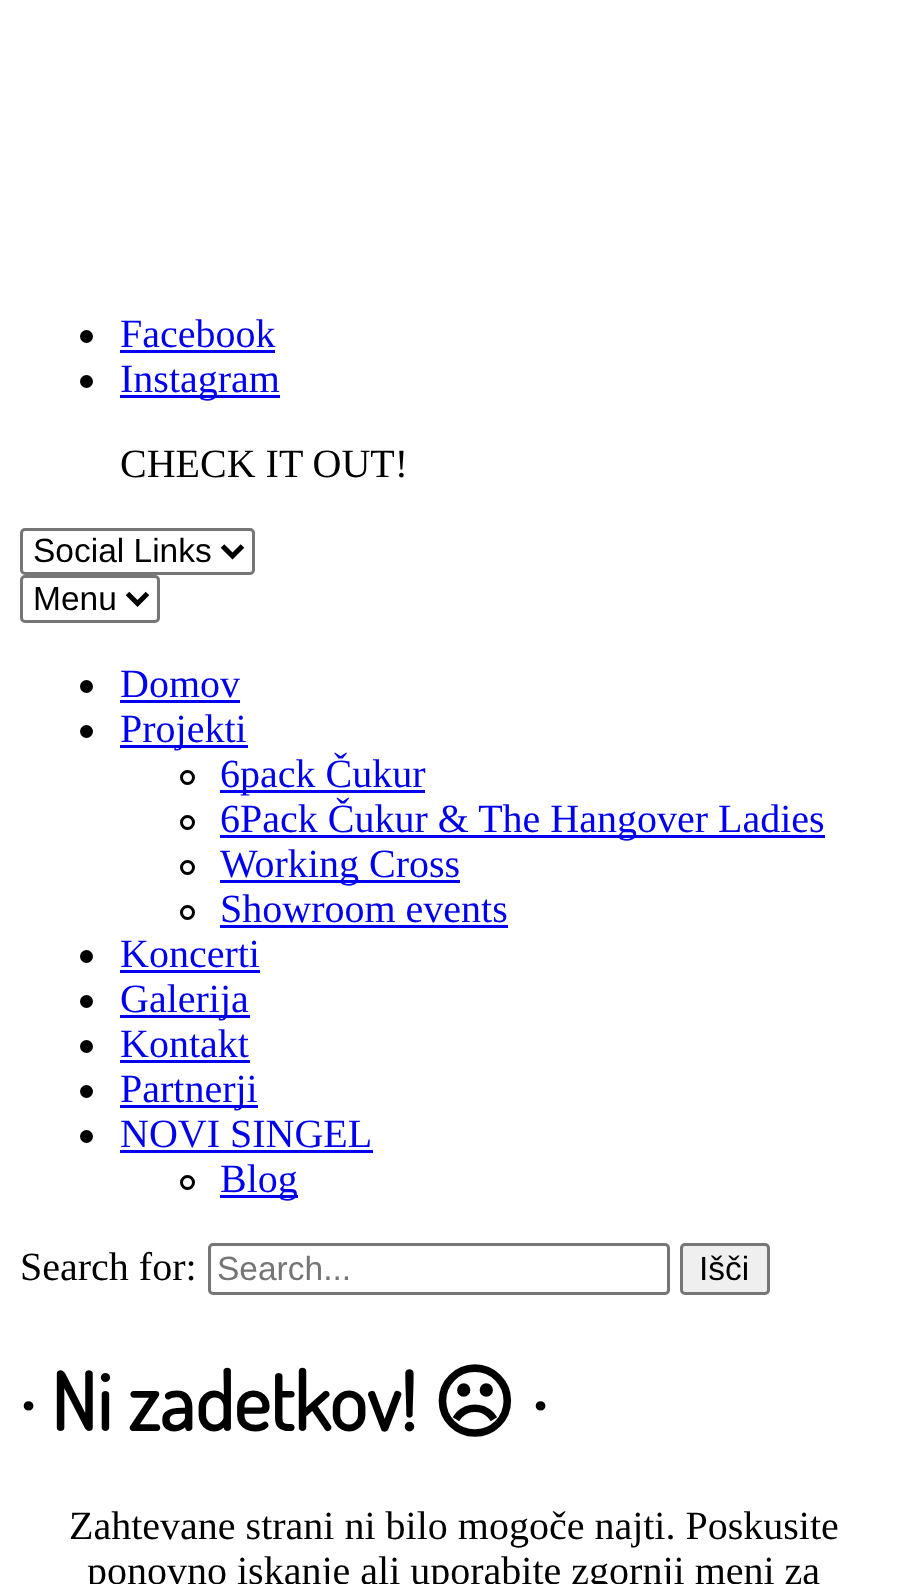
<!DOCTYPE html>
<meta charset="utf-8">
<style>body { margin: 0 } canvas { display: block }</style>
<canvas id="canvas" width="906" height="1584"></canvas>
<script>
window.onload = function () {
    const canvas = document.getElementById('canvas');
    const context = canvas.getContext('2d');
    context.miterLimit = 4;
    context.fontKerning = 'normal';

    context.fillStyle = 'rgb(255, 255, 255)';
    context.fillRect(0, 0, 906, 1584);
    context.fillStyle = 'rgb(0, 0, 0)';
    context.beginPath();
    context.arc(86.5, 336.5, 6.5, 0, 2 * Math.PI);
    context.fill();
    context.fillStyle = 'rgb(0, 0, 238)';
    context.fillRect(120, 350, 155, 3);
    context.fillStyle = 'rgb(0, 0, 0)';
    context.beginPath();
    context.arc(86.5, 381.5, 6.5, 0, 2 * Math.PI);
    context.fill();
    context.fillStyle = 'rgb(0, 0, 238)';
    context.fillRect(120, 395, 160, 3);
    context.beginPath();
    context.roundRect(21.5, 529.5, 232, 44, 3.5);
    context.strokeStyle = 'rgb(118, 118, 118)';
    context.lineWidth = 3;
    context.stroke();
    context.beginPath();
    context.moveTo(222.5, 546);
    context.lineTo(232.5, 556);
    context.lineTo(242.5, 546);
    context.strokeStyle = 'rgb(0, 0, 0)';
    context.lineWidth = 5;
    context.stroke();
    context.beginPath();
    context.roundRect(21.5, 576.5, 137, 45, 3.5);
    context.strokeStyle = 'rgb(118, 118, 118)';
    context.lineWidth = 3;
    context.stroke();
    context.beginPath();
    context.moveTo(127.5, 593.5);
    context.lineTo(137.5, 603.5);
    context.lineTo(147.5, 593.5);
    context.strokeStyle = 'rgb(0, 0, 0)';
    context.lineWidth = 5;
    context.stroke();
    context.fillStyle = 'rgb(0, 0, 0)';
    context.beginPath();
    context.arc(86.5, 686.5, 6.5, 0, 2 * Math.PI);
    context.fill();
    context.fillStyle = 'rgb(0, 0, 238)';
    context.fillRect(120, 700, 120, 3);
    context.fillStyle = 'rgb(0, 0, 0)';
    context.beginPath();
    context.arc(86.5, 731.5, 6.5, 0, 2 * Math.PI);
    context.fill();
    context.fillStyle = 'rgb(0, 0, 238)';
    context.fillRect(120, 745, 128, 3);
    context.beginPath();
    context.arc(187.5, 777.5, 6, 0, 2 * Math.PI);
    context.lineWidth = 3;
    context.stroke();
    context.fillRect(220, 790, 205, 3);
    context.beginPath();
    context.arc(187.5, 822.5, 6, 0, 2 * Math.PI);
    context.stroke();
    context.fillRect(220, 835, 605, 3);
    context.beginPath();
    context.arc(187.5, 867.5, 6, 0, 2 * Math.PI);
    context.stroke();
    context.fillRect(220, 880, 240, 3);
    context.beginPath();
    context.arc(187.5, 912.5, 6, 0, 2 * Math.PI);
    context.stroke();
    context.fillRect(220, 925, 288, 3);
    context.fillStyle = 'rgb(0, 0, 0)';
    context.beginPath();
    context.arc(86.5, 956.5, 6.5, 0, 2 * Math.PI);
    context.fill();
    context.fillStyle = 'rgb(0, 0, 238)';
    context.fillRect(120, 970, 140, 3);
    context.fillStyle = 'rgb(0, 0, 0)';
    context.beginPath();
    context.arc(86.5, 1001.5, 6.5, 0, 2 * Math.PI);
    context.fill();
    context.fillStyle = 'rgb(0, 0, 238)';
    context.fillRect(120, 1015, 130, 3);
    context.fillStyle = 'rgb(0, 0, 0)';
    context.beginPath();
    context.arc(86.5, 1046.5, 6.5, 0, 2 * Math.PI);
    context.fill();
    context.fillStyle = 'rgb(0, 0, 238)';
    context.fillRect(120, 1060, 130, 3);
    context.fillStyle = 'rgb(0, 0, 0)';
    context.beginPath();
    context.arc(86.5, 1091.5, 6.5, 0, 2 * Math.PI);
    context.fill();
    context.fillStyle = 'rgb(0, 0, 238)';
    context.fillRect(120, 1105, 138, 3);
    context.fillStyle = 'rgb(0, 0, 0)';
    context.beginPath();
    context.arc(86.5, 1136.5, 6.5, 0, 2 * Math.PI);
    context.fill();
    context.fillStyle = 'rgb(0, 0, 238)';
    context.fillRect(120, 1150, 253, 3);
    context.beginPath();
    context.arc(187.5, 1182.5, 6, 0, 2 * Math.PI);
    context.stroke();
    context.fillRect(220, 1195, 78, 3);
    context.beginPath();
    context.roundRect(209.5, 1244.5, 459, 49, 3.5);
    context.strokeStyle = 'rgb(118, 118, 118)';
    context.stroke();
    context.fillStyle = 'rgb(239, 239, 239)';
    context.beginPath();
    context.roundRect(681.5, 1244.5, 87, 49, 3.5);
    context.fill();
    context.stroke();
    context.font = '40px Liberation Serif';
    context.fillStyle = 'rgb(0, 0, 238)';
    context.fillText('Facebook', 120, 347);
    context.fillText('Instagram', 120, 392);
    context.fillStyle = 'rgb(0, 0, 0)';
    context.fillText('CHECK IT OUT!', 120, 477);
    context.font = '33.5px Liberation Sans';
    context.fillText('Social Links', 33, 562);
    context.fillText('Menu', 33, 610);
    context.font = '40px Liberation Serif';
    context.fillStyle = 'rgb(0, 0, 238)';
    context.fillText('Domov', 120, 697);
    context.fillText('Projekti', 120, 742);
    context.fillText('6pack Čukur', 220, 787);
    context.fillText('6Pack Čukur & The Hangover Ladies', 220, 832);
    context.fillText('Working Cross', 220, 877);
    context.fillText('Showroom events', 220, 922);
    context.fillText('Koncerti', 120, 967);
    context.fillText('Galerija', 120, 1012);
    context.fillText('Kontakt', 120, 1057);
    context.fillText('Partnerji', 120, 1102);
    context.fillText('NOVI SINGEL', 120, 1147);
    context.fillText('Blog', 220, 1192);
    context.fillStyle = 'rgb(0, 0, 0)';
    context.fillText('Search for:', 20, 1280);
    context.font = '33.5px Liberation Sans';
    context.fillStyle = 'rgb(117, 117, 117)';
    context.fillText('Search...', 217, 1280);
    context.fillStyle = 'rgb(0, 0, 0)';
    context.fillText('Išči', 699, 1280);
    context.font = 'bold 80px Dosis';
    context.fillText('· Ni zadetkov!', 20, 1431);
    context.font = 'bold 80px DejaVu Sans';
    context.fillText('☹', 432, 1431);
    context.font = 'bold 80px Dosis';
    context.fillText('·', 532, 1431);
    context.font = '40px Liberation Serif';
    context.fillText('Zahtevane strani ni bilo mogoče najti. Poskusite', 69, 1539);
    context.fillText('ponovno iskanje ali uporabite zgornji meni za', 87, 1584);
};
</script>
